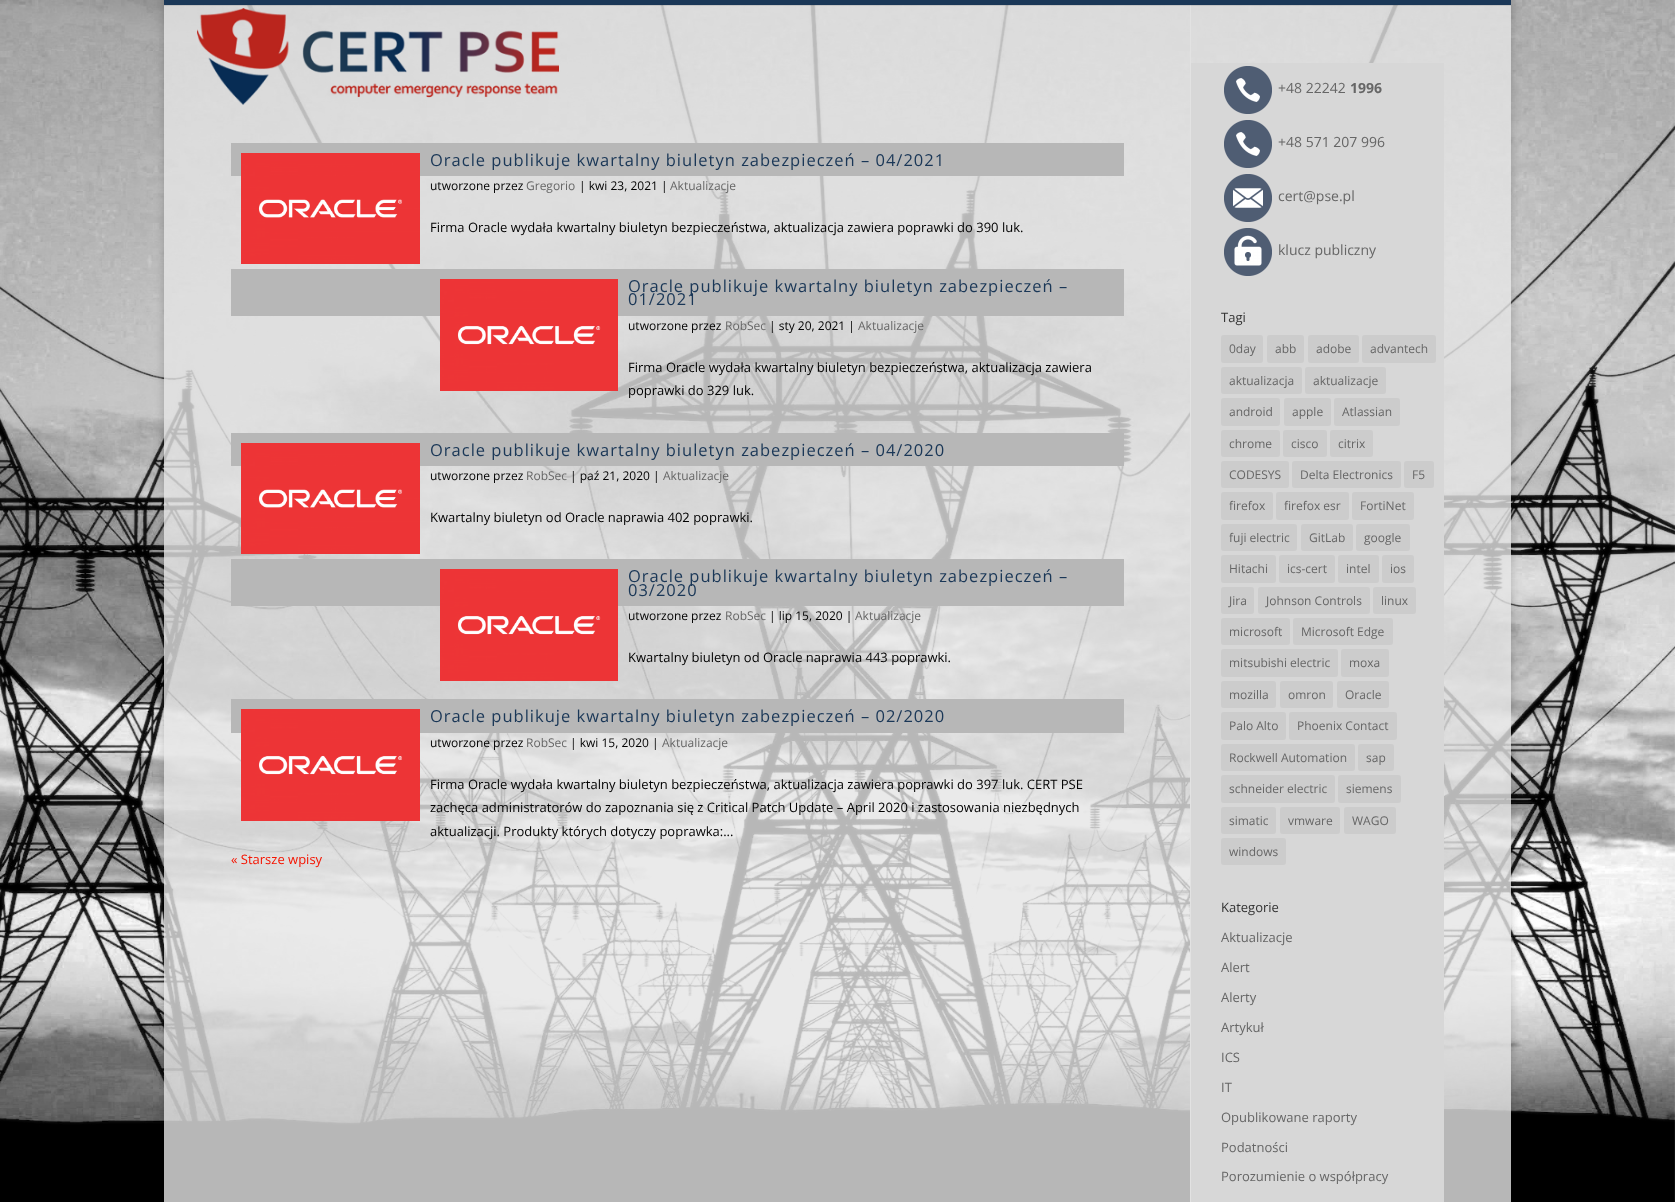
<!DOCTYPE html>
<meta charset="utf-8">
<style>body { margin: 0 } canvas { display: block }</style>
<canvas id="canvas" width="1675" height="1202"></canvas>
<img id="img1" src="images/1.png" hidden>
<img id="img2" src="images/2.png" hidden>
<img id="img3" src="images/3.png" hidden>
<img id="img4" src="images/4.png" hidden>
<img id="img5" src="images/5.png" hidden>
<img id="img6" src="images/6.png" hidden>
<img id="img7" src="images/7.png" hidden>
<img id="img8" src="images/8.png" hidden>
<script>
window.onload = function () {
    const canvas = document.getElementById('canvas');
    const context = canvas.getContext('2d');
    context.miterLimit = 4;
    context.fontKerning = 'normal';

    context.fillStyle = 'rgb(255, 255, 255)';
    context.fillRect(0, 0, 1675, 1202);
    context.drawImage(document.getElementById('img1'), 0, 0, 1675, 1202);
    context.save();
    context.beginPath();
    context.moveTo(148, 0);
    context.lineTo(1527, 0);
    context.lineTo(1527, 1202);
    context.lineTo(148, 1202);
    context.closePath();
    context.moveTo(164, -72);
    context.lineTo(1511, -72);
    context.lineTo(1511, 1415);
    context.lineTo(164, 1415);
    context.closePath();
    context.clip('evenodd');
    context.fillStyle = 'rgba(0, 0, 0, 0.2)';
    context.filter = 'blur(5px)';
    context.beginPath();
    context.rect(164, -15, 1347, 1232);
    context.fill();
    context.filter = 'none';
    context.restore();
    context.fillStyle = 'rgba(229, 229, 229, 0.8)';
    context.fillRect(164, 5, 1347, 1197);
    context.fillStyle = 'rgb(226, 226, 226)';
    context.fillRect(1190, 5, 1, 1197);
    context.fillStyle = 'rgba(0, 0, 0, 0.1)';
    context.fillRect(164, 5, 1347, 1);
    context.fillStyle = 'rgb(26, 55, 87)';
    context.fillRect(164, 0, 1347, 5);
    context.drawImage(document.getElementById('img2'), 197, 8, 362, 97);
    context.fillStyle = 'rgb(183, 183, 183)';
    context.fillRect(231, 143, 893, 33);
    context.drawImage(document.getElementById('img3'), 241, 153, 179, 111);
    context.fillRect(231, 269, 893, 47);
    context.drawImage(document.getElementById('img4'), 440, 279, 178, 112);
    context.fillRect(231, 433, 893, 33);
    context.drawImage(document.getElementById('img3'), 241, 443, 179, 111);
    context.fillRect(231, 559, 893, 47);
    context.drawImage(document.getElementById('img4'), 440, 569, 178, 112);
    context.fillRect(231, 699, 893, 34);
    context.drawImage(document.getElementById('img5'), 241, 709, 179, 112);
    context.fillStyle = 'rgb(215, 215, 215)';
    context.fillRect(1191, 63, 253, 1139);
    context.drawImage(document.getElementById('img6'), 1224, 66, 48, 48);
    context.drawImage(document.getElementById('img6'), 1224, 120, 48, 48);
    context.drawImage(document.getElementById('img7'), 1224, 174, 48, 48);
    context.drawImage(document.getElementById('img8'), 1224, 228, 48, 48);
    context.fillStyle = 'rgb(204, 204, 204)';
    context.beginPath();
    context.roundRect(1221, 335, 42, 28, 3);
    context.fill();
    context.beginPath();
    context.roundRect(1267, 335, 37, 28, 3);
    context.fill();
    context.beginPath();
    context.roundRect(1308, 335, 51, 28, 3);
    context.fill();
    context.beginPath();
    context.roundRect(1362, 335, 74, 28, 3);
    context.fill();
    context.beginPath();
    context.roundRect(1221, 367, 81, 27, 3);
    context.fill();
    context.beginPath();
    context.roundRect(1305, 367, 81, 27, 3);
    context.fill();
    context.beginPath();
    context.roundRect(1221, 398, 59, 28, 3);
    context.fill();
    context.beginPath();
    context.roundRect(1284, 398, 47, 28, 3);
    context.fill();
    context.beginPath();
    context.roundRect(1334, 398, 66, 28, 3);
    context.fill();
    context.beginPath();
    context.roundRect(1221, 430, 59, 27, 3);
    context.fill();
    context.beginPath();
    context.roundRect(1283, 430, 44, 27, 3);
    context.fill();
    context.beginPath();
    context.roundRect(1330, 430, 43, 27, 3);
    context.fill();
    context.beginPath();
    context.roundRect(1221, 461, 68, 27, 3);
    context.fill();
    context.beginPath();
    context.roundRect(1292, 461, 109, 27, 3);
    context.fill();
    context.beginPath();
    context.roundRect(1404, 461, 30, 27, 3);
    context.fill();
    context.beginPath();
    context.roundRect(1221, 492, 52, 28, 3);
    context.fill();
    context.beginPath();
    context.roundRect(1276, 492, 73, 28, 3);
    context.fill();
    context.beginPath();
    context.roundRect(1352, 492, 62, 28, 3);
    context.fill();
    context.beginPath();
    context.roundRect(1221, 524, 76, 27, 3);
    context.fill();
    context.beginPath();
    context.roundRect(1301, 524, 52, 27, 3);
    context.fill();
    context.beginPath();
    context.roundRect(1356, 524, 54, 27, 3);
    context.fill();
    context.beginPath();
    context.roundRect(1221, 555, 55, 28, 3);
    context.fill();
    context.beginPath();
    context.roundRect(1279, 555, 56, 28, 3);
    context.fill();
    context.beginPath();
    context.roundRect(1338, 555, 41, 28, 3);
    context.fill();
    context.beginPath();
    context.roundRect(1382, 555, 32, 28, 3);
    context.fill();
    context.beginPath();
    context.roundRect(1221, 587, 33, 27, 3);
    context.fill();
    context.beginPath();
    context.roundRect(1258, 587, 112, 27, 3);
    context.fill();
    context.beginPath();
    context.roundRect(1373, 587, 43, 27, 3);
    context.fill();
    context.beginPath();
    context.roundRect(1221, 618, 69, 27, 3);
    context.fill();
    context.beginPath();
    context.roundRect(1293, 618, 100, 27, 3);
    context.fill();
    context.beginPath();
    context.roundRect(1221, 649, 117, 28, 3);
    context.fill();
    context.beginPath();
    context.roundRect(1341, 649, 48, 28, 3);
    context.fill();
    context.beginPath();
    context.roundRect(1221, 681, 55, 27, 3);
    context.fill();
    context.beginPath();
    context.roundRect(1280, 681, 53, 27, 3);
    context.fill();
    context.beginPath();
    context.roundRect(1337, 681, 52, 27, 3);
    context.fill();
    context.beginPath();
    context.roundRect(1221, 712, 65, 28, 3);
    context.fill();
    context.beginPath();
    context.roundRect(1289, 712, 108, 28, 3);
    context.fill();
    context.beginPath();
    context.roundRect(1221, 744, 134, 27, 3);
    context.fill();
    context.beginPath();
    context.roundRect(1358, 744, 36, 27, 3);
    context.fill();
    context.beginPath();
    context.roundRect(1221, 775, 114, 28, 3);
    context.fill();
    context.beginPath();
    context.roundRect(1338, 775, 63, 28, 3);
    context.fill();
    context.beginPath();
    context.roundRect(1221, 807, 55, 27, 3);
    context.fill();
    context.beginPath();
    context.roundRect(1280, 807, 60, 27, 3);
    context.fill();
    context.beginPath();
    context.roundRect(1344, 807, 52, 27, 3);
    context.fill();
    context.beginPath();
    context.roundRect(1221, 838, 65, 27, 3);
    context.fill();
    context.letterSpacing = '1px';
    context.font = '16.5px Open Sans';
    context.fillStyle = 'rgb(26, 55, 87)';
    context.fillText('Oracle publikuje kwartalny biuletyn zabezpieczeń – 04/2021', 430, 166);
    context.letterSpacing = '0px';
    context.font = '12px Open Sans';
    context.fillStyle = 'rgb(0, 0, 0)';
    context.fillText('utworzone przez', 430, 190);
    context.fillStyle = 'rgb(102, 102, 102)';
    context.fillText('Gregorio', 526, 190);
    context.fillStyle = 'rgb(0, 0, 0)';
    context.fillText('| kwi 23, 2021 |', 579, 190);
    context.fillStyle = 'rgb(102, 102, 102)';
    context.fillText('Aktualizacje', 670, 190);
    context.font = '13px Open Sans';
    context.fillStyle = 'rgb(0, 0, 0)';
    context.fillText('Firma Oracle wydała kwartalny biuletyn bezpieczeństwa, aktualizacja zawiera poprawki do 390 luk.', 430, 232);
    context.letterSpacing = '1px';
    context.font = '16.5px Open Sans';
    context.fillStyle = 'rgb(26, 55, 87)';
    context.fillText('Oracle publikuje kwartalny biuletyn zabezpieczeń –', 628, 292);
    context.fillText('01/2021', 628, 305);
    context.letterSpacing = '0px';
    context.font = '12px Open Sans';
    context.fillStyle = 'rgb(0, 0, 0)';
    context.fillText('utworzone przez', 628, 330);
    context.fillStyle = 'rgb(102, 102, 102)';
    context.fillText('RobSec', 725, 330);
    context.fillStyle = 'rgb(0, 0, 0)';
    context.fillText('| sty 20, 2021 |', 769, 330);
    context.fillStyle = 'rgb(102, 102, 102)';
    context.fillText('Aktualizacje', 858, 330);
    context.font = '13px Open Sans';
    context.fillStyle = 'rgb(0, 0, 0)';
    context.fillText('Firma Oracle wydała kwartalny biuletyn bezpieczeństwa, aktualizacja zawiera', 628, 372);
    context.fillText('poprawki do 329 luk.', 628, 395);
    context.letterSpacing = '1px';
    context.font = '16.5px Open Sans';
    context.fillStyle = 'rgb(26, 55, 87)';
    context.fillText('Oracle publikuje kwartalny biuletyn zabezpieczeń – 04/2020', 430, 456);
    context.letterSpacing = '0px';
    context.font = '12px Open Sans';
    context.fillStyle = 'rgb(0, 0, 0)';
    context.fillText('utworzone przez', 430, 480);
    context.fillStyle = 'rgb(102, 102, 102)';
    context.fillText('RobSec', 526, 480);
    context.fillStyle = 'rgb(0, 0, 0)';
    context.fillText('| paź 21, 2020 |', 570, 480);
    context.fillStyle = 'rgb(102, 102, 102)';
    context.fillText('Aktualizacje', 663, 480);
    context.font = '13px Open Sans';
    context.fillStyle = 'rgb(0, 0, 0)';
    context.fillText('Kwartalny biuletyn od Oracle naprawia 402 poprawki.', 430, 522);
    context.letterSpacing = '1px';
    context.font = '16.5px Open Sans';
    context.fillStyle = 'rgb(26, 55, 87)';
    context.fillText('Oracle publikuje kwartalny biuletyn zabezpieczeń –', 628, 582);
    context.fillText('03/2020', 628, 596);
    context.letterSpacing = '0px';
    context.font = '12px Open Sans';
    context.fillStyle = 'rgb(0, 0, 0)';
    context.fillText('utworzone przez', 628, 620);
    context.fillStyle = 'rgb(102, 102, 102)';
    context.fillText('RobSec', 725, 620);
    context.fillStyle = 'rgb(0, 0, 0)';
    context.fillText('| lip 15, 2020 |', 769, 620);
    context.fillStyle = 'rgb(102, 102, 102)';
    context.fillText('Aktualizacje', 855, 620);
    context.font = '13px Open Sans';
    context.fillStyle = 'rgb(0, 0, 0)';
    context.fillText('Kwartalny biuletyn od Oracle naprawia 443 poprawki.', 628, 662);
    context.letterSpacing = '1px';
    context.font = '16.5px Open Sans';
    context.fillStyle = 'rgb(26, 55, 87)';
    context.fillText('Oracle publikuje kwartalny biuletyn zabezpieczeń – 02/2020', 430, 722);
    context.letterSpacing = '0px';
    context.font = '12px Open Sans';
    context.fillStyle = 'rgb(0, 0, 0)';
    context.fillText('utworzone przez', 430, 747);
    context.fillStyle = 'rgb(102, 102, 102)';
    context.fillText('RobSec', 526, 747);
    context.fillStyle = 'rgb(0, 0, 0)';
    context.fillText('| kwi 15, 2020 |', 570, 747);
    context.fillStyle = 'rgb(102, 102, 102)';
    context.fillText('Aktualizacje', 662, 747);
    context.font = '13px Open Sans';
    context.fillStyle = 'rgb(0, 0, 0)';
    context.fillText('Firma Oracle wydała kwartalny biuletyn bezpieczeństwa, aktualizacja zawiera poprawki do 397 luk. CERT PSE', 430, 789);
    context.fillText('zachęca administratorów do zapoznania się z Critical Patch Update – April 2020 i zastosowania niezbędnych', 430, 812);
    context.fillText('aktualizacji. Produkty których dotyczy poprawka:...', 430, 836);
    context.fillStyle = 'rgb(244, 20, 0)';
    context.fillText('« Starsze wpisy', 231, 864);
    context.font = '14px Open Sans';
    context.fillStyle = 'rgb(102, 102, 102)';
    context.fillText('+48 22242', 1278, 93);
    context.font = 'bold 14px Open Sans';
    context.fillText('1996', 1350, 93);
    context.font = '14px Open Sans';
    context.fillText('+48 571 207 996', 1278, 147);
    context.fillText('cert@pse.pl', 1278, 201);
    context.fillText('klucz publiczny', 1278, 255);
    context.font = '13px Open Sans';
    context.fillStyle = 'rgb(51, 51, 51)';
    context.fillText('Tagi', 1221, 322);
    context.font = '12px Open Sans';
    context.fillStyle = 'rgb(102, 102, 102)';
    context.fillText('0day', 1229, 353);
    context.fillText('abb', 1275, 353);
    context.fillText('adobe', 1316, 353);
    context.fillText('advantech', 1370, 353);
    context.fillText('aktualizacja', 1229, 385);
    context.fillText('aktualizacje', 1313, 385);
    context.fillText('android', 1229, 416);
    context.fillText('apple', 1292, 416);
    context.fillText('Atlassian', 1342, 416);
    context.fillText('chrome', 1229, 448);
    context.fillText('cisco', 1291, 448);
    context.fillText('citrix', 1338, 448);
    context.fillText('CODESYS', 1229, 479);
    context.fillText('Delta Electronics', 1300, 479);
    context.fillText('F5', 1412, 479);
    context.fillText('firefox', 1229, 510);
    context.fillText('firefox esr', 1284, 510);
    context.fillText('FortiNet', 1360, 510);
    context.fillText('fuji electric', 1229, 542);
    context.fillText('GitLab', 1309, 542);
    context.fillText('google', 1364, 542);
    context.fillText('Hitachi', 1229, 573);
    context.fillText('ics-cert', 1287, 573);
    context.fillText('intel', 1346, 573);
    context.fillText('ios', 1390, 573);
    context.fillText('Jira', 1229, 605);
    context.fillText('Johnson Controls', 1266, 605);
    context.fillText('linux', 1381, 605);
    context.fillText('microsoft', 1229, 636);
    context.fillText('Microsoft Edge', 1301, 636);
    context.fillText('mitsubishi electric', 1229, 667);
    context.fillText('moxa', 1349, 667);
    context.fillText('mozilla', 1229, 699);
    context.fillText('omron', 1288, 699);
    context.fillText('Oracle', 1345, 699);
    context.fillText('Palo Alto', 1229, 730);
    context.fillText('Phoenix Contact', 1297, 730);
    context.fillText('Rockwell Automation', 1229, 762);
    context.fillText('sap', 1366, 762);
    context.fillText('schneider electric', 1229, 793);
    context.fillText('siemens', 1346, 793);
    context.fillText('simatic', 1229, 825);
    context.fillText('vmware', 1288, 825);
    context.fillText('WAGO', 1352, 825);
    context.fillText('windows', 1229, 856);
    context.font = '13px Open Sans';
    context.fillStyle = 'rgb(51, 51, 51)';
    context.fillText('Kategorie', 1221, 912);
    context.fillStyle = 'rgb(102, 102, 102)';
    context.fillText('Aktualizacje', 1221, 942);
    context.fillText('Alert', 1221, 972);
    context.fillText('Alerty', 1221, 1002);
    context.fillText('Artykuł', 1221, 1032);
    context.fillText('ICS', 1221, 1062);
    context.fillText('IT', 1221, 1092);
    context.fillText('Opublikowane raporty', 1221, 1122);
    context.fillText('Podatności', 1221, 1152);
    context.fillText('Porozumienie o współpracy', 1221, 1181);
};
</script>
